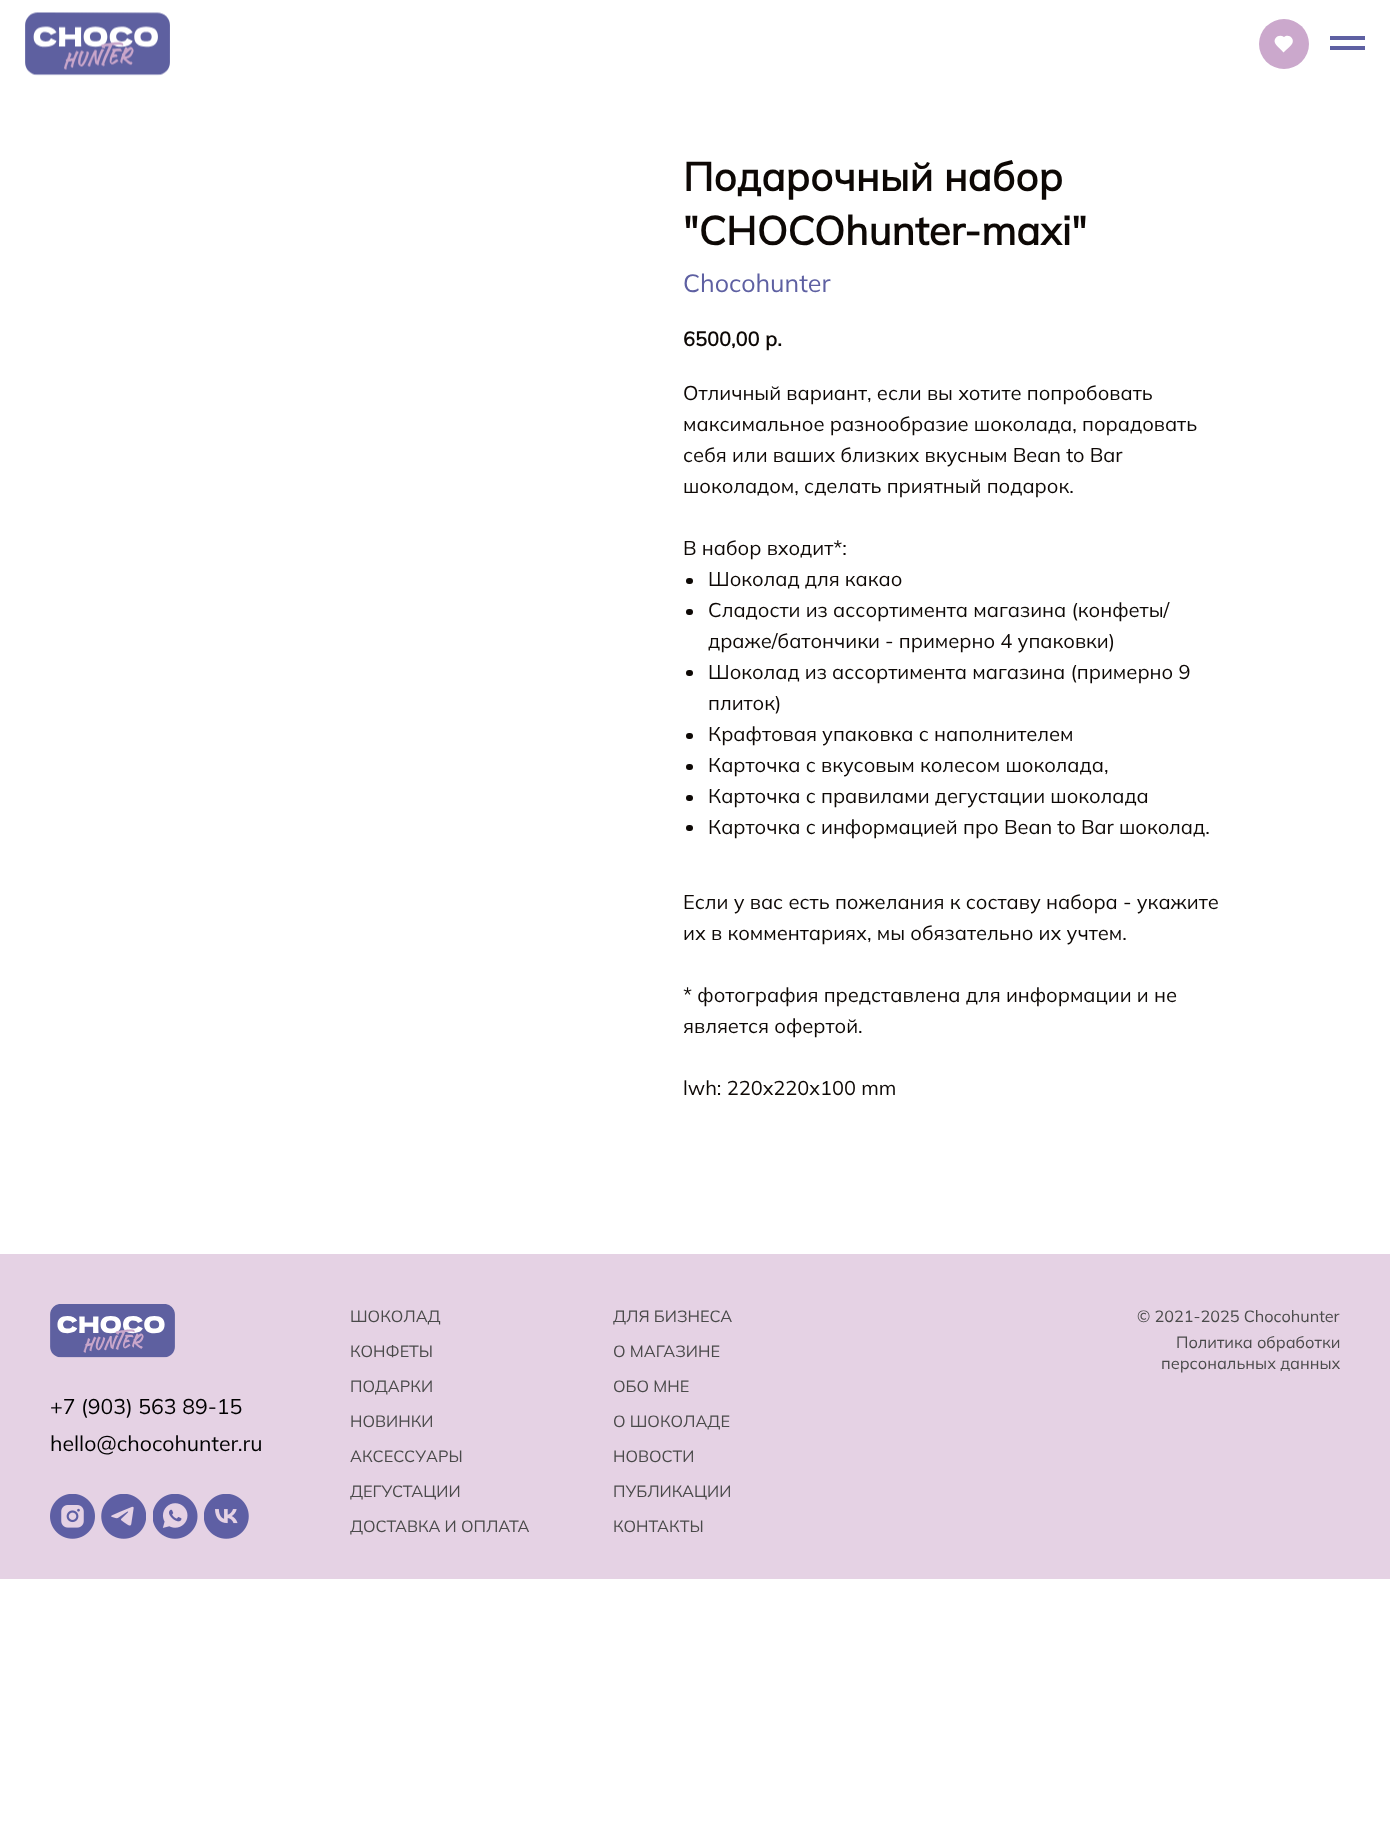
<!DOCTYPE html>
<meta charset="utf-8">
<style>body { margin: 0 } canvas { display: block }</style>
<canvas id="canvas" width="1390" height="1827"></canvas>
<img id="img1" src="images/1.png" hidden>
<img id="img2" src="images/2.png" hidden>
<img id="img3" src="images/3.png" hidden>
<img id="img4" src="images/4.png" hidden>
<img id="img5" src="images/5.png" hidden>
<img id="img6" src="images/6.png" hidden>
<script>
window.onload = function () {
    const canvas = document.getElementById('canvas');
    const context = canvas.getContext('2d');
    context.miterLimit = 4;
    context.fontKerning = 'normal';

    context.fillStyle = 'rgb(255, 255, 255)';
    context.fillRect(0, 0, 1390, 1827);
    context.drawImage(document.getElementById('img1'), 25, 12, 145, 64);
    context.fillStyle = 'rgb(94, 96, 162)';
    context.fillRect(1330, 36, 35, 4);
    context.fillRect(1330, 46, 35, 4);
    context.fillStyle = 'rgb(203, 168, 204)';
    context.beginPath();
    context.arc(1284, 44, 25, 0, 2 * Math.PI);
    context.fill();
    context.fillStyle = 'rgb(255, 255, 255)';
    context.beginPath();
    context.moveTo(1284, 37);
    context.bezierCurveTo(1288, 33.5, 1294.5, 37.5, 1292.5, 43);
    context.bezierCurveTo(1291.5, 45.5, 1286, 50, 1283.5, 52.5);
    context.bezierCurveTo(1281.5, 50, 1276, 45.5, 1275, 43);
    context.bezierCurveTo(1273, 37.5, 1279.5, 33.5, 1284, 37);
    context.closePath();
    context.fill();
    context.fillStyle = 'rgb(13, 8, 5)';
    context.beginPath();
    context.roundRect(686, 578, 7, 6, 3);
    context.fill();
    context.beginPath();
    context.roundRect(686, 609, 7, 6, 3);
    context.fill();
    context.beginPath();
    context.roundRect(686, 670, 7, 6, 3);
    context.fill();
    context.beginPath();
    context.roundRect(686, 733, 7, 6, 3);
    context.fill();
    context.beginPath();
    context.roundRect(686, 764, 7, 6, 3);
    context.fill();
    context.beginPath();
    context.roundRect(686, 795, 7, 6, 3);
    context.fill();
    context.beginPath();
    context.roundRect(686, 825, 7, 6, 3);
    context.fill();
    context.fillStyle = 'rgb(229, 210, 228)';
    context.fillRect(0, 1254, 1390, 325);
    context.drawImage(document.getElementById('img2'), 50, 1304, 125, 54);
    context.drawImage(document.getElementById('img3'), 50, 1494, 45, 45);
    context.drawImage(document.getElementById('img4'), 101, 1494, 45, 45);
    context.drawImage(document.getElementById('img5'), 153, 1494, 45, 45);
    context.drawImage(document.getElementById('img6'), 204, 1494, 45, 45);
    context.font = 'bold 40px Mulish';
    context.fillStyle = 'rgb(13, 8, 5)';
    context.fillText('Подарочный набор', 683, 191);
    context.fillText('"CHOCOhunter-maxi"', 683, 245);
    context.font = '200 25px Mulish';
    context.fillStyle = 'rgb(94, 96, 162)';
    context.fillText('Chocohunter', 683, 292);
    context.font = 'bold 20px Mulish';
    context.fillStyle = 'rgb(13, 8, 5)';
    context.fillText('6500,00', 683, 346);
    context.fillText('р.', 765, 346);
    context.font = '200 20px Mulish';
    context.fillText('Отличный вариант, если вы хотите попробовать', 683, 400);
    context.fillText('максимальное разнообразие шоколада, порадовать', 683, 431);
    context.fillText('себя или ваших близких вкусным Bean to Bar', 683, 462);
    context.fillText('шоколадом, сделать приятный подарок.', 683, 493);
    context.fillText('В набор входит*:', 683, 555);
    context.fillText('Шоколад для какао', 708, 586);
    context.fillText('Сладости из ассортимента магазина (конфеты/', 708, 617);
    context.fillText('драже/батончики - примерно 4 упаковки)', 708, 648);
    context.fillText('Шоколад из ассортимента магазина (примерно 9', 708, 679);
    context.fillText('плиток)', 708, 710);
    context.fillText('Крафтовая упаковка с наполнителем', 708, 741);
    context.fillText('Карточка с вкусовым колесом шоколада,', 708, 772);
    context.fillText('Карточка с правилами дегустации шоколада', 708, 803);
    context.fillText('Карточка с информацией про Bean to Bar шоколад.', 708, 834);
    context.fillText('Если у вас есть пожелания к составу набора - укажите', 683, 909);
    context.fillText('их в комментариях, мы обязательно их учтем.', 683, 940);
    context.fillText('* фотография представлена для информации и не', 683, 1002);
    context.fillText('является офертой.', 683, 1033);
    context.fillText('lwh: 220x220x100 mm', 683, 1095);
    context.font = '200 16.25px Mulish';
    context.fillStyle = 'rgb(74, 74, 74)';
    context.fillText('ШОКОЛАД', 350, 1322);
    context.fillText('ДЛЯ БИЗНЕСА', 613, 1322);
    context.fillText('© 2021-2025 Chocohunter', 1137, 1322);
    context.fillText('КОНФЕТЫ', 350, 1357);
    context.fillText('О МАГАЗИНЕ', 613, 1357);
    context.fillText('Политика обработки', 1176, 1348);
    context.fillText('персональных данных', 1161, 1369);
    context.fillText('ПОДАРКИ', 350, 1392);
    context.fillText('ОБО МНЕ', 613, 1392);
    context.font = '200 21.25px Mulish';
    context.fillStyle = 'rgb(0, 0, 0)';
    context.fillText('+7 (903) 563 89-15', 50, 1414);
    context.font = '200 16.25px Mulish';
    context.fillStyle = 'rgb(74, 74, 74)';
    context.fillText('НОВИНКИ', 350, 1427);
    context.fillText('О ШОКОЛАДЕ', 613, 1427);
    context.font = '200 21.25px Mulish';
    context.fillStyle = 'rgb(0, 0, 0)';
    context.fillText('hello@chocohunter.ru', 50, 1451);
    context.font = '200 16.25px Mulish';
    context.fillStyle = 'rgb(74, 74, 74)';
    context.fillText('АКСЕССУАРЫ', 350, 1462);
    context.fillText('НОВОСТИ', 613, 1462);
    context.fillText('ДЕГУСТАЦИИ', 350, 1497);
    context.fillText('ПУБЛИКАЦИИ', 613, 1497);
    context.fillText('ДОСТАВКА И ОПЛАТА', 350, 1532);
    context.fillText('КОНТАКТЫ', 613, 1532);
};
</script>
